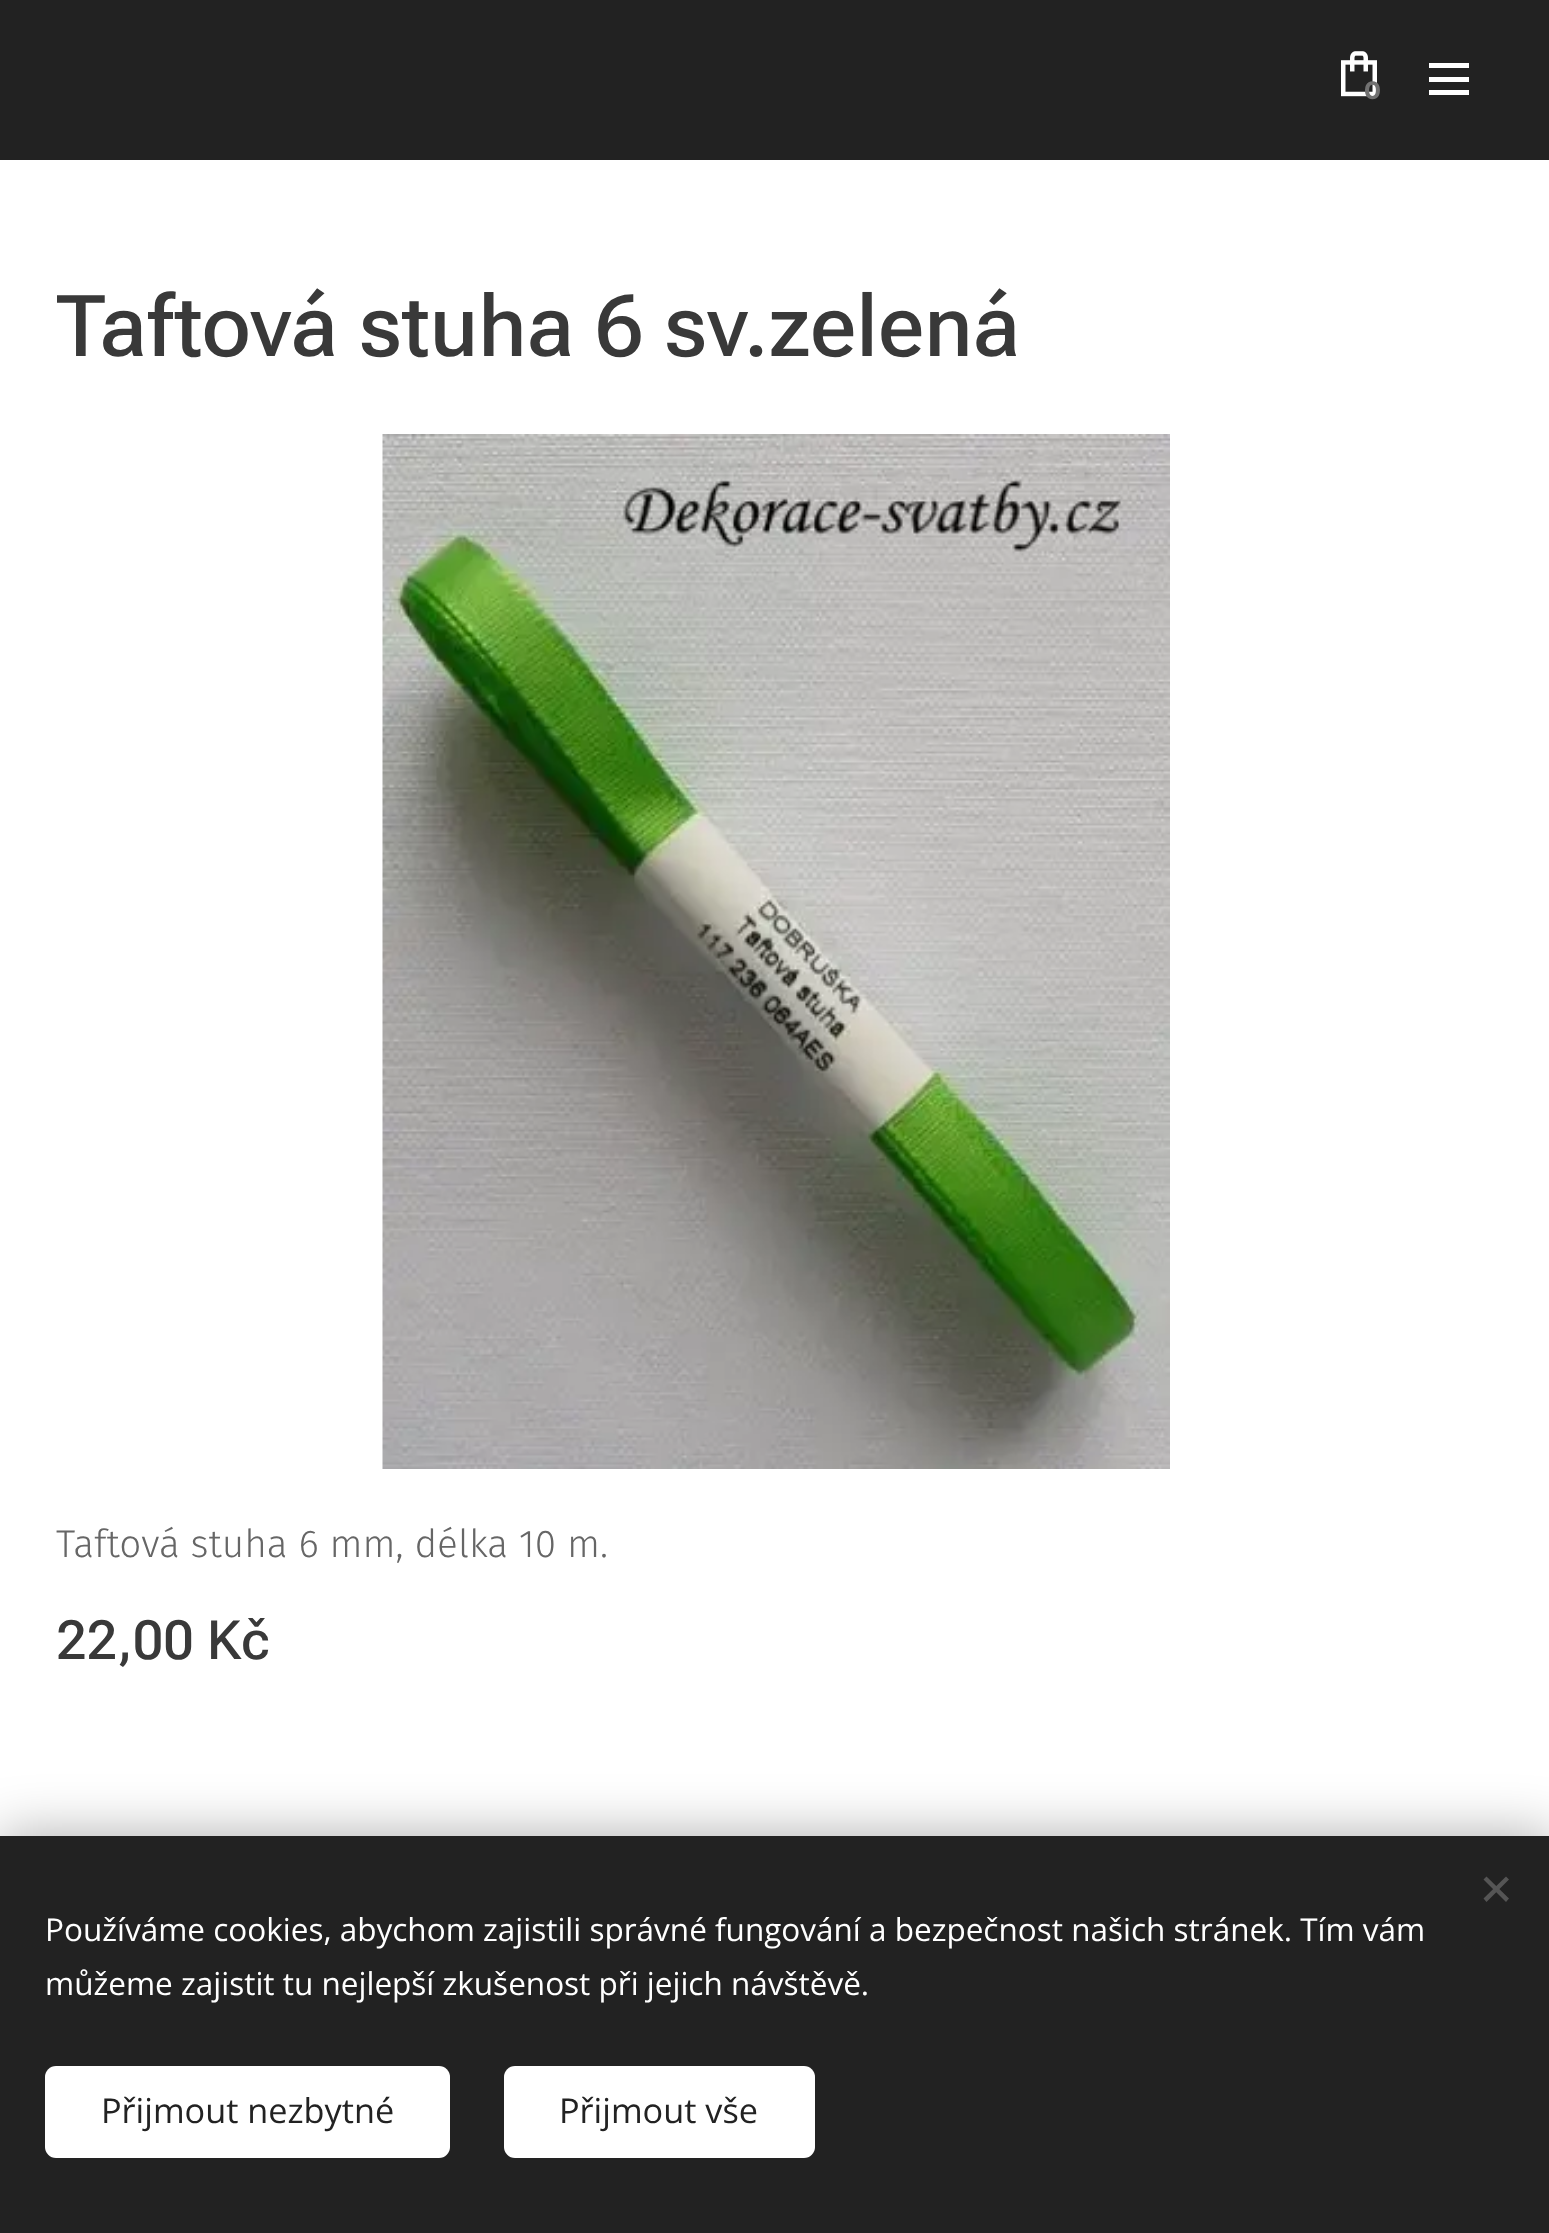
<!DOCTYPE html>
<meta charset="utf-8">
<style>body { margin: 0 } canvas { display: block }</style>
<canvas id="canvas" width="1549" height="2233"></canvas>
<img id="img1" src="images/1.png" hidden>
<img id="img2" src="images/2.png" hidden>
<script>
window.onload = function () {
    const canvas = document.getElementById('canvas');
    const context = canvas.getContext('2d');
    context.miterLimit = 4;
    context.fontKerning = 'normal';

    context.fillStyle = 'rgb(255, 255, 255)';
    context.fillRect(0, 0, 1549, 2233);
    context.fillStyle = 'rgb(34, 34, 34)';
    context.fillRect(0, 0, 1549, 160);
    context.drawImage(document.getElementById('img1'), 1341, 51, 36, 46);
    context.fillStyle = 'rgb(255, 255, 255)';
    context.fillRect(1429, 77, 40, 5);
    context.fillRect(1429, 63, 40, 5);
    context.fillRect(1429, 90, 40, 5);
    context.drawImage(document.getElementById('img2'), 382, 434, 788, 1035);
    context.fillStyle = 'rgba(0, 0, 0, 0.33)';
    context.filter = 'blur(28px)';
    context.beginPath();
    context.rect(0, 1836, 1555, 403);
    context.fill();
    context.filter = 'none';
    context.fillStyle = 'rgb(34, 34, 34)';
    context.fillRect(0, 1836, 1549, 397);
    context.fillStyle = 'rgb(85, 85, 85)';
    context.beginPath();
    context.moveTo(1483.5, 1898.5);
    context.lineTo(1506, 1876.5);
    context.lineTo(1509, 1879.5);
    context.lineTo(1486.5, 1902);
    context.closePath();
    context.fill();
    context.beginPath();
    context.moveTo(1486.5, 1876.5);
    context.lineTo(1509, 1898.5);
    context.lineTo(1506, 1902);
    context.lineTo(1483.5, 1879.5);
    context.closePath();
    context.fill();
    context.fillStyle = 'rgb(255, 255, 255)';
    context.beginPath();
    context.roundRect(45, 2066, 405, 92, 11);
    context.fill();
    context.beginPath();
    context.roundRect(504, 2066, 311, 92, 11);
    context.fill();
    context.font = 'bold 25px Montserrat';
    context.fillStyle = 'rgb(113, 113, 113)';
    context.fillText('0', 1364, 99);
    context.font = '500 85.5px Roboto Flex';
    context.fillStyle = 'rgb(57, 57, 57)';
    context.fillText('Taftová stuha 6 sv.zelená', 56, 356);
    context.font = '300 38.75px Fira Sans';
    context.fillStyle = 'rgb(102, 102, 102)';
    context.fillText('Taftová stuha 6 mm, délka 10 m.', 56, 1557);
    context.font = '500 54px Roboto Flex';
    context.fillStyle = 'rgb(57, 57, 57)';
    context.fillText('22,00 Kč', 56, 1659);
    context.font = '31.5px Open Sans';
    context.fillStyle = 'rgb(255, 255, 255)';
    context.fillText('Používáme cookies, abychom zajistili správné fungování a bezpečnost našich stránek. Tím vám', 45, 1941);
    context.fillText('můžeme zajistit tu nejlepší zkušenost při jejich návštěvě.', 45, 1995);
    context.font = '34.25px Open Sans';
    context.fillStyle = 'rgb(34, 34, 34)';
    context.fillText('Přijmout nezbytné', 101, 2123);
    context.fillText('Přijmout vše', 559, 2123);
};
</script>
